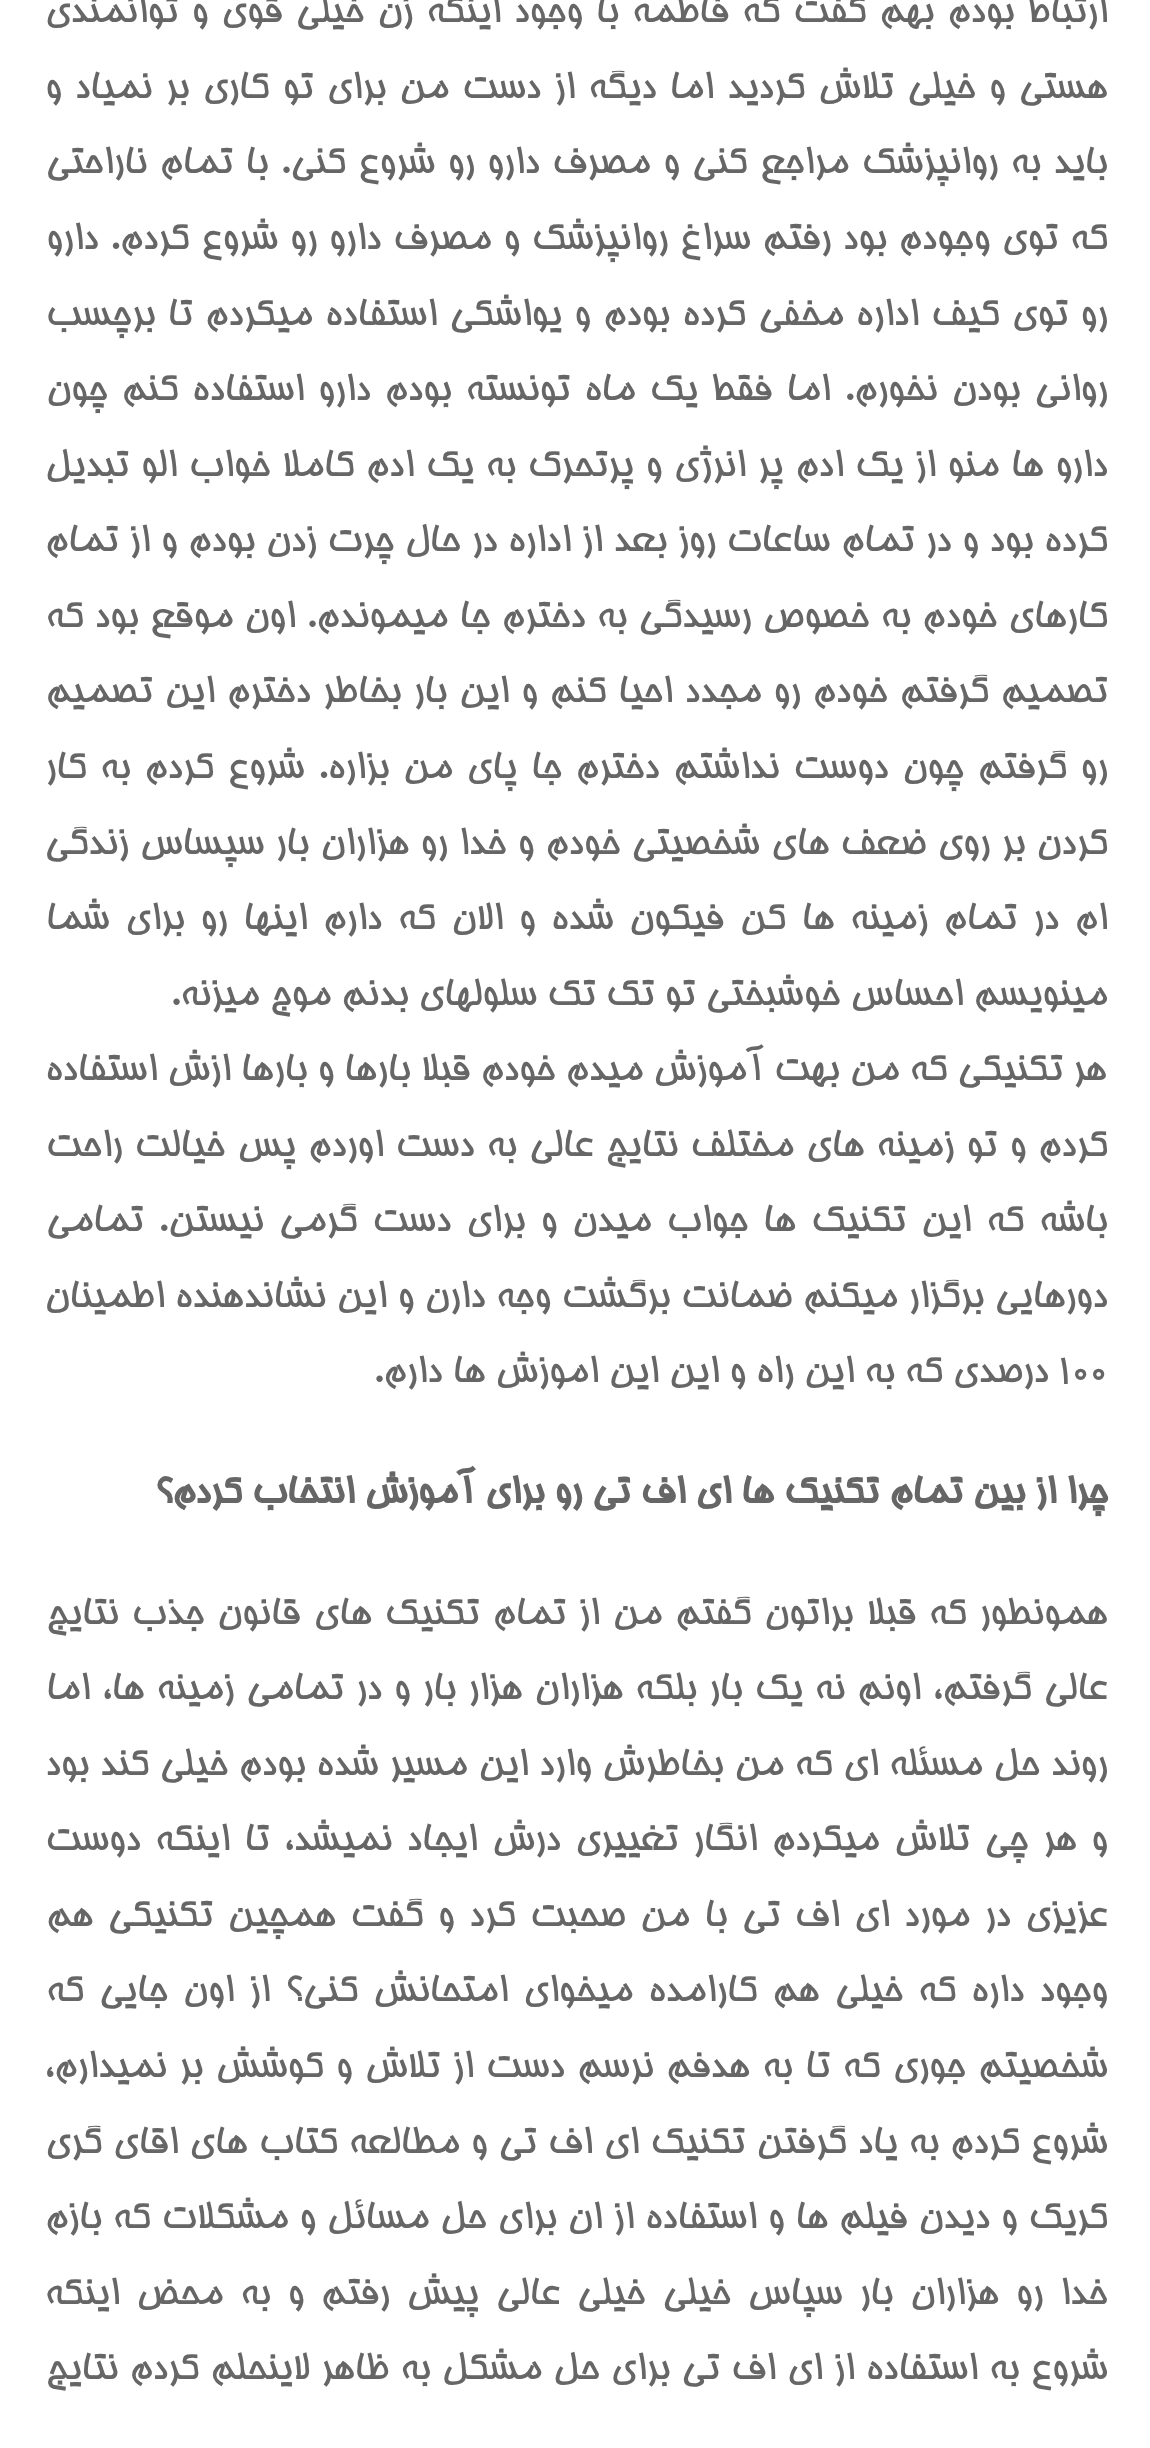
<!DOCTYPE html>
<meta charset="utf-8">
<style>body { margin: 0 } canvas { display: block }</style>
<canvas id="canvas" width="1150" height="2448"></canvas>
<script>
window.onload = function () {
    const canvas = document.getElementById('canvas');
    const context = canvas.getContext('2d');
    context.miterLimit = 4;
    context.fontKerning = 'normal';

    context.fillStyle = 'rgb(255, 255, 255)';
    context.fillRect(0, 0, 1150, 2448);
    context.wordSpacing = '3.1px';
    context.direction = 'rtl';
    context.font = '42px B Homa';
    context.fillStyle = 'rgb(102, 102, 102)';
    context.fillText('ارتباط بودم بهم گفت که فاطمه با وجود اینکه زن خیلی قوی و توانمندی', 1107, 22);
    context.fillText('هستی و خیلی تلاش کردید اما دیگه از دست من برای تو کاری بر نمیاد و', 1107, 98);
    context.wordSpacing = '2.25px';
    context.fillText('باید به روانپزشک مراجع کنی و مصرف دارو رو شروع کنی. با تمام ناراحتی', 1107, 173);
    context.wordSpacing = '1.6px';
    context.fillText('که توی وجودم بود رفتم سراغ روانپزشک و مصرف دارو رو شروع کردم. دارو', 1107, 249);
    context.wordSpacing = '2.1px';
    context.fillText('رو توی کیف اداره مخفی کرده بودم و یواشکی استفاده میکردم تا برچسب', 1107, 325);
    context.wordSpacing = '3.9px';
    context.fillText('روانی بودن نخورم. اما فقط یک ماه تونسته بودم دارو استفاده کنم چون', 1107, 400);
    context.wordSpacing = '1.5px';
    context.fillText('دارو ها منو از یک ادم پر انرژی و پرتحرک به یک ادم کاملا خواب الو تبدیل', 1107, 476);
    context.wordSpacing = '0.6px';
    context.fillText('کرده بود و در تمام ساعات روز بعد از اداره در حال چرت زدن بودم و از تمام', 1107, 551);
    context.wordSpacing = '1.1px';
    context.fillText('کارهای خودم به خصوص رسیدگی به دخترم جا میموندم. اون موقع بود که', 1107, 627);
    context.wordSpacing = '1.75px';
    context.fillText('تصمیم گرفتم خودم رو مجدد احیا کنم و این بار بخاطر دخترم این تصمیم', 1107, 702);
    context.wordSpacing = '3.6px';
    context.fillText('رو گرفتم چون دوست نداشتم دخترم جا پای من بزاره. شروع کردم به کار', 1107, 778);
    context.wordSpacing = '1px';
    context.fillText('کردن بر روی ضعف های شخصیتی خودم و خدا رو هزاران بار سپساس زندگی', 1107, 854);
    context.wordSpacing = '5.6px';
    context.fillText('ام در تمام زمینه ها کن فیکون شده و الان که دارم اینها رو برای شما', 1107, 929);
    context.wordSpacing = '0px';
    context.fillText('مینویسم احساس خوشبختی تو تک تک سلولهای بدنم موج میزنه.', 1107, 1005);
    context.fillText('هر تکنیکی که من بهت آموزش میدم خودم قبلا بارها و بارها ازش استفاده', 1106, 1080);
    context.wordSpacing = '2px';
    context.fillText('کردم و تو زمینه های مختلف نتایج عالی به دست اوردم پس خیالت راحت', 1107, 1156);
    context.wordSpacing = '4.9px';
    context.fillText('باشه که این تکنیک ها جواب میدن و برای دست گرمی نیستن. تمامی', 1107, 1231);
    context.wordSpacing = '0.5px';
    context.fillText('دورهایی برگزار میکنم ضمانت برگشت وجه دارن و این نشاندهنده اطمینان', 1107, 1307);
    context.wordSpacing = '0px';
    context.direction = 'ltr';
    context.fillText('۱۰۰', 1058, 1382);
    context.direction = 'rtl';
    context.fillText('درصدی که به این راه و این این اموزش ها دارم.', 1048, 1382);
    context.font = 'bold 42px B Homa';
    context.fillText('چرا از بین تمام تکنیک ها ای اف تی رو برای آموزش انتخاب کردم؟', 1107, 1503);
    context.wordSpacing = '2.75px';
    context.font = '42px B Homa';
    context.fillText('همونطور که قبلا براتون گفتم من از تمام تکنیک های قانون جذب نتایج', 1107, 1624);
    context.wordSpacing = '1.8px';
    context.fillText('عالی گرفتم، اونم نه یک بار بلکه هزاران هزار بار و در تمامی زمینه ها، اما', 1107, 1699);
    context.wordSpacing = '0.5px';
    context.fillText('روند حل مسئله ای که من بخاطرش وارد این مسیر شده بودم خیلی کند بود', 1107, 1775);
    context.wordSpacing = '4.4px';
    context.fillText('و هر چی تلاش میکردم انگار تغییری درش ایجاد نمیشد، تا اینکه دوست', 1107, 1850);
    context.fillText('عزیزی در مورد ای اف تی با من صحبت کرد و گفت همچین تکنیکی هم', 1107, 1926);
    context.wordSpacing = '5px';
    context.fillText('وجود داره که خیلی هم کارامده میخوای امتحانش کنی؟ از اون جایی که', 1107, 2001);
    context.wordSpacing = '2.25px';
    context.fillText('شخصیتم جوری که تا به هدفم نرسم دست از تلاش و کوشش بر نمیدارم،', 1107, 2077);
    context.wordSpacing = '0.9px';
    context.fillText('شروع کردم به یاد گرفتن تکنیک ای اف تی و مطالعه کتاب های اقای گری', 1107, 2153);
    context.wordSpacing = '0.75px';
    context.fillText('کریک و دیدن فیلم ها و استفاده از ان برای حل مسائل و مشکلات که بازم', 1107, 2228);
    context.wordSpacing = '6.75px';
    context.fillText('خدا رو هزاران بار سپاس خیلی خیلی عالی پیش رفتم و به محض اینکه', 1107, 2304);
    context.wordSpacing = '1.1px';
    context.fillText('شروع به استفاده از ای اف تی برای حل مشکل به ظاهر لاینحلم کردم نتایج', 1107, 2379);
};
</script>
